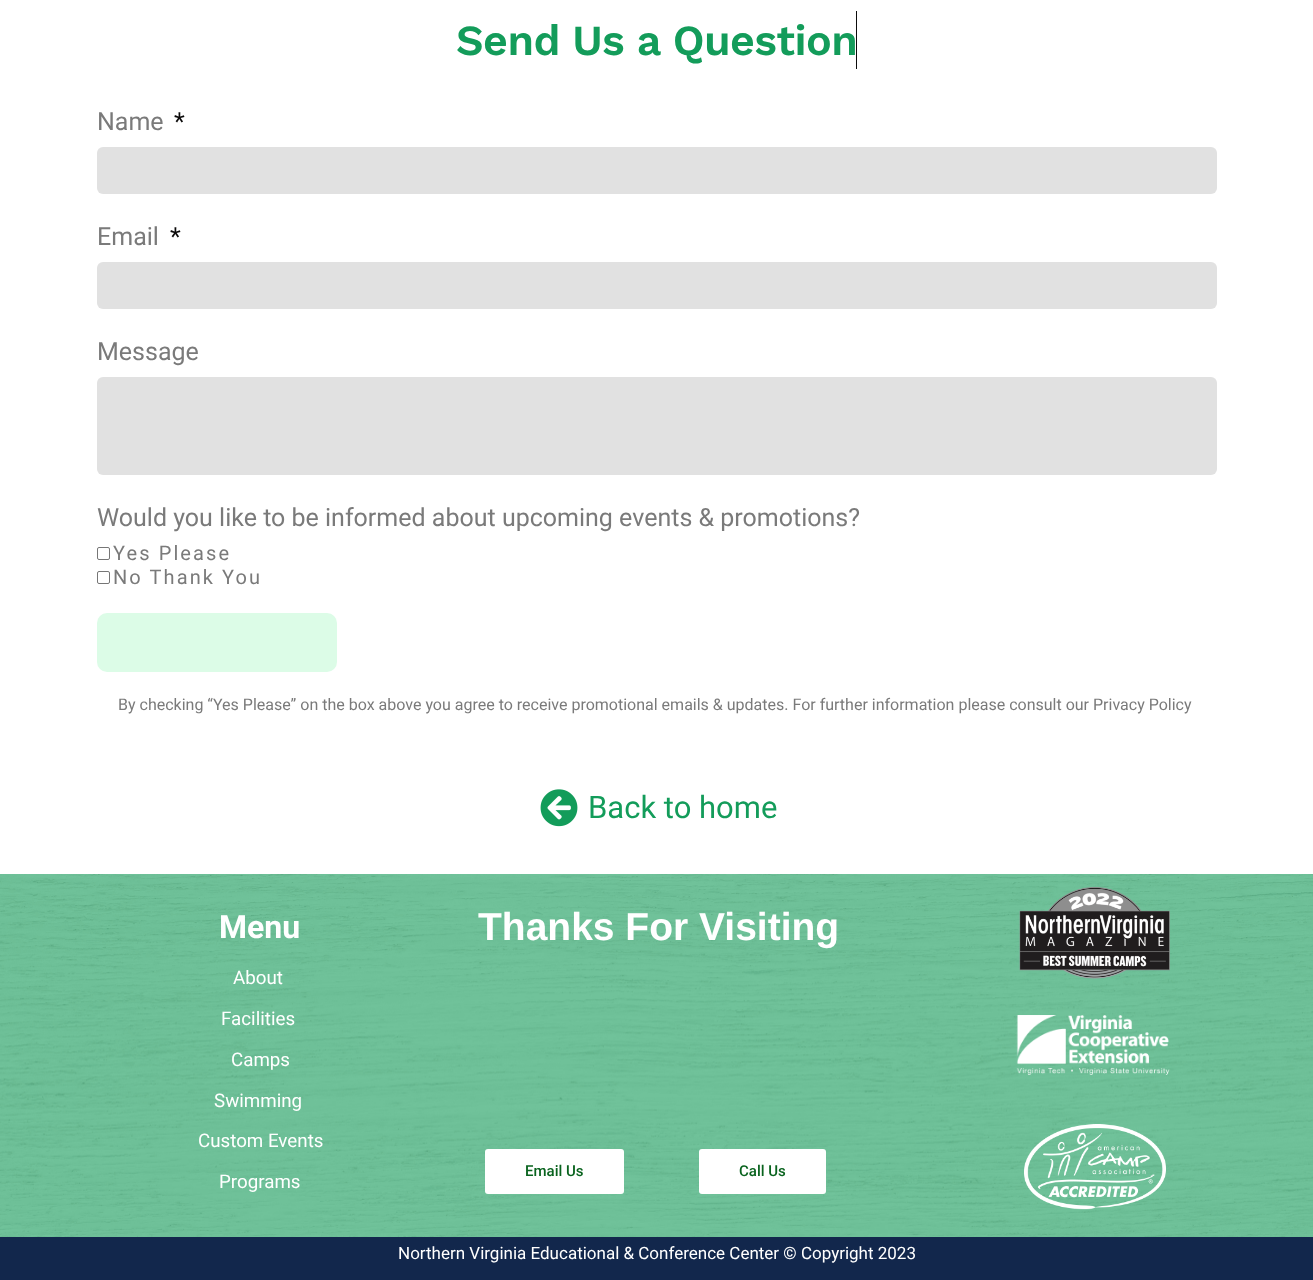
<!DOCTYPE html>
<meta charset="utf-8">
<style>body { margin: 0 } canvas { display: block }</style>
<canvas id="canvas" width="1313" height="1280"></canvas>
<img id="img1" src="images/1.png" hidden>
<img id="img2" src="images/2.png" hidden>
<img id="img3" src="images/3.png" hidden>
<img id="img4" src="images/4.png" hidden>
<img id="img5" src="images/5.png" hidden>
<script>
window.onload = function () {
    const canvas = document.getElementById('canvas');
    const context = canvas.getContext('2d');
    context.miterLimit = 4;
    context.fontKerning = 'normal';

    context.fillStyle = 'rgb(255, 255, 255)';
    context.fillRect(0, 0, 1313, 1280);
    context.fillStyle = 'rgb(13, 13, 13)';
    context.fillRect(856, 11, 1, 58);
    context.fillStyle = 'rgb(225, 225, 225)';
    context.beginPath();
    context.roundRect(97, 147, 1120, 47, 6);
    context.fill();
    context.beginPath();
    context.roundRect(97, 262, 1120, 47, 6);
    context.fill();
    context.beginPath();
    context.roundRect(97, 377, 1120, 98, 6);
    context.fill();
    context.beginPath();
    context.roundRect(97.5, 547.5, 12, 12, 1.5);
    context.strokeStyle = 'rgb(118, 118, 118)';
    context.stroke();
    context.beginPath();
    context.roundRect(97.5, 571.5, 12, 12, 1.5);
    context.stroke();
    context.fillStyle = 'rgb(220, 252, 231)';
    context.beginPath();
    context.roundRect(97, 613, 240, 59, 10);
    context.fill();
    context.drawImage(document.getElementById('img1'), 540, 789, 38, 38);
    context.drawImage(document.getElementById('img2'), 0, 874, 1313, 363);
    context.fillStyle = 'rgb(255, 255, 255)';
    context.beginPath();
    context.roundRect(485, 1149, 139, 45, 3);
    context.fill();
    context.beginPath();
    context.roundRect(699, 1149, 127, 45, 3);
    context.fill();
    context.drawImage(document.getElementById('img3'), 1019, 887, 151, 92);
    context.drawImage(document.getElementById('img4'), 1016, 1015, 154, 60);
    context.drawImage(document.getElementById('img5'), 1024, 1124, 142, 86);
    context.fillStyle = 'rgb(18, 39, 76)';
    context.fillRect(0, 1237, 1313, 43);
    context.letterSpacing = '-0.6px';
    context.font = '600 43px Work Sans';
    context.fillStyle = 'rgb(19, 156, 90)';
    context.fillText('Send Us a Question', 456, 55);
    context.letterSpacing = '0px';
    context.font = '25px Roboto';
    context.fillStyle = 'rgb(122, 122, 122)';
    context.fillText('Name', 97, 130);
    context.fillStyle = 'rgb(10, 9, 9)';
    context.fillText('*', 174, 130);
    context.fillStyle = 'rgb(122, 122, 122)';
    context.fillText('Email', 97, 245);
    context.fillStyle = 'rgb(10, 9, 9)';
    context.fillText('*', 170, 245);
    context.fillStyle = 'rgb(122, 122, 122)';
    context.fillText('Message', 97, 360);
    context.fillText('Would you like to be informed about upcoming events & promotions?', 97, 526);
    context.letterSpacing = '2.1px';
    context.font = '20px Roboto';
    context.fillText('Yes Please', 113, 560);
    context.fillText('No Thank You', 113, 584);
    context.letterSpacing = '0px';
    context.font = '16px Roboto';
    context.fillText('By checking “Yes Please” on the box above you agree to receive promotional emails & updates. For further information please consult our Privacy Policy', 118, 710);
    context.font = '31px Roboto';
    context.fillStyle = 'rgb(19, 156, 90)';
    context.fillText('Back to home', 588, 818);
    context.font = 'bold 32px Roboto';
    context.fillStyle = 'rgb(255, 255, 255)';
    context.fillText('Menu', 219, 938);
    context.font = '18.75px Roboto';
    context.fillText('About', 233, 984);
    context.fillText('Facilities', 221, 1025);
    context.fillText('Camps', 231, 1066);
    context.fillText('Swimming', 214, 1107);
    context.fillText('Custom Events', 198, 1147);
    context.fillText('Programs', 219, 1188);
    context.font = 'bold 39px Liberation Sans';
    context.fillText('Thanks For Visiting', 478, 940);
    context.font = '500 15px Roboto';
    context.fillStyle = 'rgb(9, 99, 30)';
    context.fillText('Email Us', 525, 1176);
    context.fillText('Call Us', 739, 1176);
    context.font = '17px Roboto';
    context.fillStyle = 'rgb(255, 255, 255)';
    context.fillText('Northern Virginia Educational & Conference Center © Copyright 2023', 398, 1259);
};
</script>
